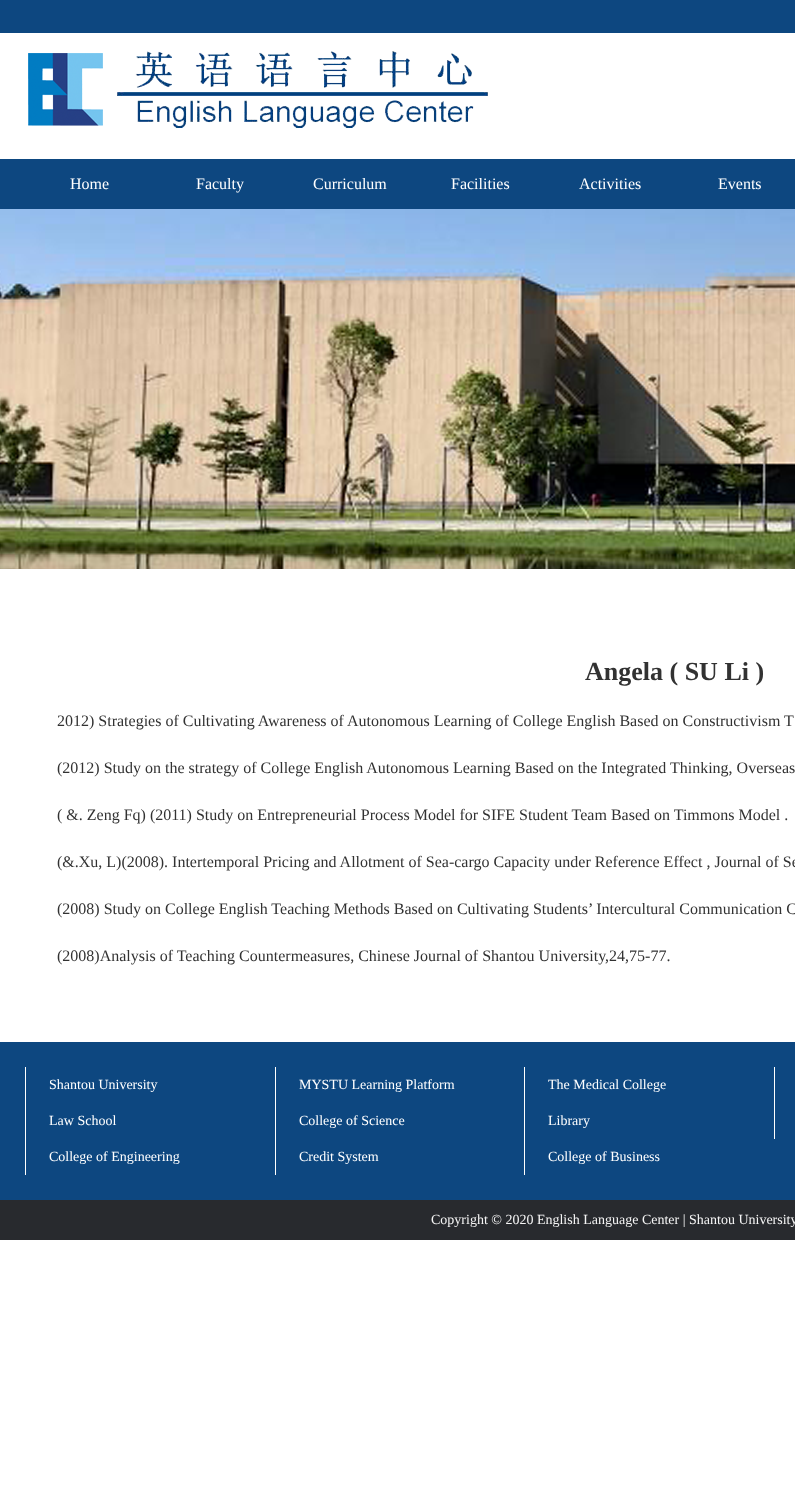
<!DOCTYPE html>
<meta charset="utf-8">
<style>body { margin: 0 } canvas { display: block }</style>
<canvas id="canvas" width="795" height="1490"></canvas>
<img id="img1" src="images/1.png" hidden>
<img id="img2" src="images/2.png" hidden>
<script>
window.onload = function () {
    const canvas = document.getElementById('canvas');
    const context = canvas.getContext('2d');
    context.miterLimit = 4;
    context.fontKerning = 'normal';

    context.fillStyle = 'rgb(255, 255, 255)';
    context.fillRect(0, 0, 795, 1490);
    context.fillStyle = 'rgb(13, 71, 128)';
    context.fillRect(0, 0, 795, 33);
    context.drawImage(document.getElementById('img1'), 28, 51, 460, 77);
    context.fillRect(0, 159, 795, 50);
    context.drawImage(document.getElementById('img2'), 0, 209, 795, 360);
    context.fillRect(0, 1042, 795, 158);
    context.fillStyle = 'rgb(255, 255, 255)';
    context.fillRect(25, 1067, 1, 108);
    context.fillRect(275, 1067, 1, 108);
    context.fillRect(524, 1067, 1, 108);
    context.fillRect(774, 1067, 1, 72);
    context.fillStyle = 'rgb(40, 42, 46)';
    context.fillRect(0, 1200, 795, 40);
    context.font = '16px Liberation Serif';
    context.fillStyle = 'rgb(255, 255, 255)';
    context.fillText('Home', 70, 189);
    context.fillText('Faculty', 196, 189);
    context.fillText('Curriculum', 313, 189);
    context.fillText('Facilities', 451, 189);
    context.fillText('Activities', 579, 189);
    context.fillText('Events', 718, 189);
    context.font = 'bold 26px Liberation Serif';
    context.fillStyle = 'rgb(50, 50, 50)';
    context.fillText('Angela ( SU Li )', 585, 680);
    context.font = '16px Liberation Serif';
    context.fillText('2012) Strategies of Cultivating Awareness of Autonomous Learning of College English Based on Constructivism T', 57, 726);
    context.fillText('(2012) Study on the strategy of College English Autonomous Learning Based on the Integrated Thinking, Overseas', 57, 773);
    context.fillText('( &. Zeng Fq) (2011) Study on Entrepreneurial Process Model for SIFE Student Team Based on Timmons Model .', 57, 820);
    context.fillText('(&.Xu, L)(2008). Intertemporal Pricing and Allotment of Sea-cargo Capacity under Reference Effect , Journal of Se', 57, 867);
    context.fillText('(2008) Study on College English Teaching Methods Based on Cultivating Students’ Intercultural Communication C', 57, 914);
    context.fillText('(2008)Analysis of Teaching Countermeasures, Chinese Journal of Shantou University,24,75-77.', 57, 961);
    context.font = '14px Liberation Serif';
    context.fillStyle = 'rgb(255, 255, 255)';
    context.fillText('Shantou University', 49, 1089);
    context.fillText('Law School', 49, 1125);
    context.fillText('College of Engineering', 49, 1161);
    context.fillText('MYSTU Learning Platform', 299, 1089);
    context.fillText('College of Science', 299, 1125);
    context.fillText('Credit System', 299, 1161);
    context.fillText('The Medical College', 548, 1089);
    context.fillText('Library', 548, 1125);
    context.fillText('College of Business', 548, 1161);
    context.fillStyle = 'rgb(245, 245, 245)';
    context.fillText('Copyright © 2020 English Language Center | Shantou University', 431, 1224);
};
</script>
